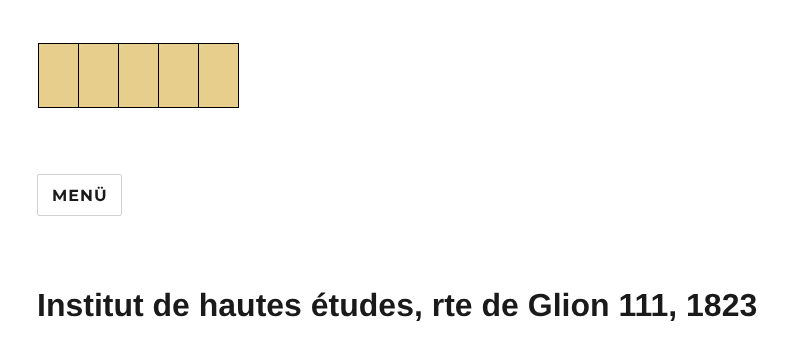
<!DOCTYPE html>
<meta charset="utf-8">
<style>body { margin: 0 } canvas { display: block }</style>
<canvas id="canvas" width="804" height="349"></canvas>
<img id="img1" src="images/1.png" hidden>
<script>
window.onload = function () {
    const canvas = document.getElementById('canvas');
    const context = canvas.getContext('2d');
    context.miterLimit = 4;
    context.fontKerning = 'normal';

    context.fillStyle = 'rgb(255, 255, 255)';
    context.fillRect(0, 0, 804, 349);
    context.drawImage(document.getElementById('img1'), 38, 43, 201, 65);
    context.beginPath();
    context.roundRect(37.5, 174.5, 84, 41, 1.5);
    context.strokeStyle = 'rgb(209, 209, 209)';
    context.stroke();
    context.letterSpacing = '1px';
    context.font = 'bold 16px Montserrat';
    context.fillStyle = 'rgb(26, 26, 26)';
    context.fillText('MENÜ', 52, 201);
    context.letterSpacing = '0px';
    context.font = 'bold 32px Liberation Sans';
    context.fillText('Institut de hautes études, rte de Glion 111, 1823', 37, 316);
};
</script>
